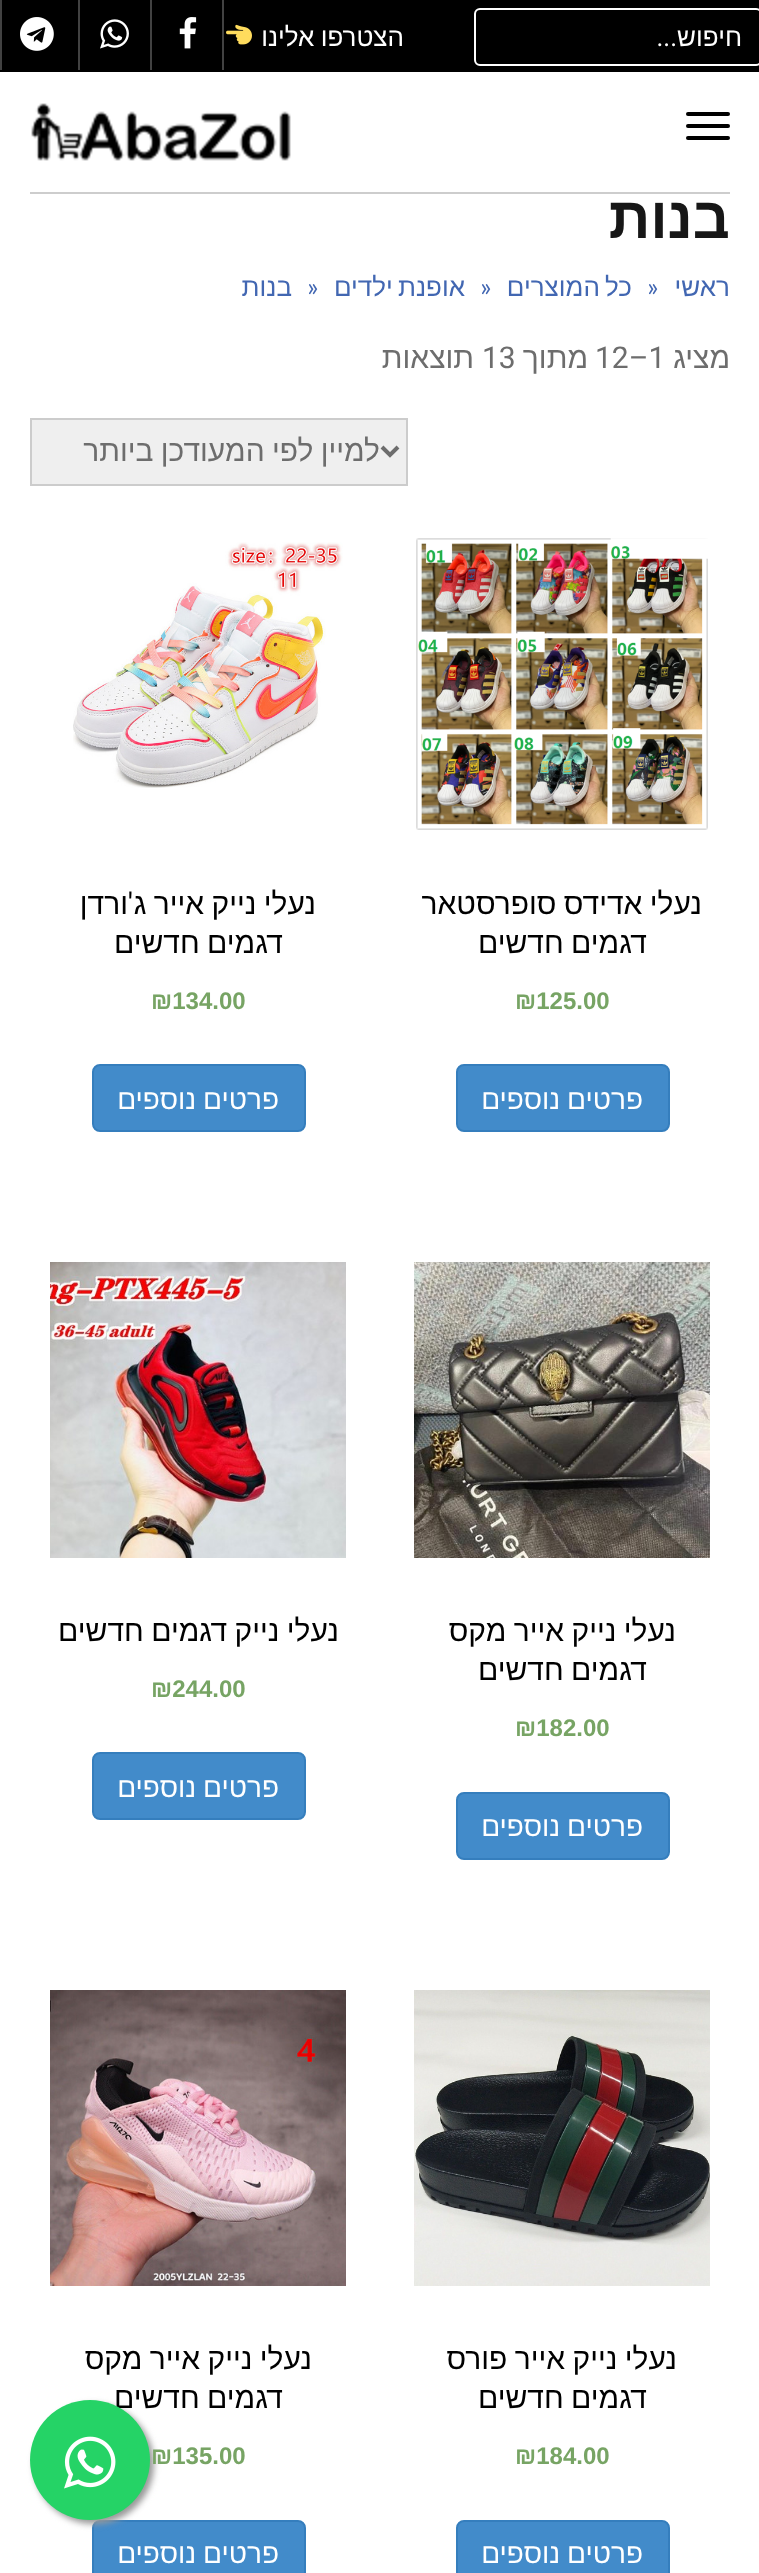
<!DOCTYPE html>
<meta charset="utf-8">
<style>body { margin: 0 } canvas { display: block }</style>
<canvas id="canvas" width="759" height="2573"></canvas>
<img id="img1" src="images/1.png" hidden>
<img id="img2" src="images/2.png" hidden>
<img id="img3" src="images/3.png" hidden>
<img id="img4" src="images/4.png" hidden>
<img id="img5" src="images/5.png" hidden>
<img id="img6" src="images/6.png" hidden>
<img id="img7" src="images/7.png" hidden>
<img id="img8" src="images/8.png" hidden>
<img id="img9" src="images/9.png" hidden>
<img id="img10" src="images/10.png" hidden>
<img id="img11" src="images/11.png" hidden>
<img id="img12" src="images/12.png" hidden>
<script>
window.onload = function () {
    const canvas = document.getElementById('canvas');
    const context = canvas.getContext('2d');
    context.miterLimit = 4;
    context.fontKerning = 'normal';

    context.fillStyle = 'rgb(255, 255, 255)';
    context.fillRect(0, 0, 759, 2573);
    context.fillStyle = 'rgb(0, 0, 0)';
    context.fillRect(0, 0, 759, 72);
    context.beginPath();
    context.roundRect(475, 9, 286, 56, 5);
    context.strokeStyle = 'rgb(255, 255, 255)';
    context.lineWidth = 2;
    context.stroke();
    context.drawImage(document.getElementById('img1'), 226, 24, 26, 21);
    context.fillStyle = 'rgb(66, 66, 66)';
    context.fillRect(222, 0, 2, 70);
    context.fillRect(150, 0, 2, 70);
    context.drawImage(document.getElementById('img2'), 179, 17, 18, 32);
    context.fillRect(78, 0, 2, 70);
    context.drawImage(document.getElementById('img3'), 100, 19, 29, 30);
    context.fillRect(0, 0, 2, 70);
    context.drawImage(document.getElementById('img4'), 20, 17, 34, 34);
    context.fillStyle = 'rgb(0, 0, 0)';
    context.beginPath();
    context.roundRect(686, 112, 44, 4, 2);
    context.fill();
    context.beginPath();
    context.roundRect(686, 124, 44, 4, 2);
    context.fill();
    context.beginPath();
    context.roundRect(686, 136, 44, 4, 2);
    context.fill();
    context.drawImage(document.getElementById('img5'), 31, 103, 260, 58);
    context.fillStyle = 'rgb(205, 205, 205)';
    context.fillRect(30, 192, 700, 2);
    context.fillStyle = 'rgb(239, 239, 239)';
    context.beginPath();
    context.rect(31, 419, 376, 66);
    context.fill();
    context.strokeStyle = 'rgb(204, 204, 204)';
    context.stroke();
    context.beginPath();
    context.moveTo(382, 447);
    context.lineTo(390, 455);
    context.lineTo(398, 447);
    context.strokeStyle = 'rgb(109, 109, 109)';
    context.lineWidth = 4;
    context.stroke();
    context.drawImage(document.getElementById('img6'), 416, 538, 292, 292);
    context.fillStyle = 'rgb(66, 139, 202)';
    context.beginPath();
    context.roundRect(457, 1065, 212, 66, 7);
    context.fill();
    context.strokeStyle = 'rgb(53, 126, 189)';
    context.lineWidth = 2;
    context.stroke();
    context.drawImage(document.getElementById('img7'), 73, 542, 270, 246);
    context.beginPath();
    context.roundRect(93, 1065, 212, 66, 7);
    context.fill();
    context.stroke();
    context.drawImage(document.getElementById('img8'), 414, 1262, 296, 296);
    context.beginPath();
    context.roundRect(457, 1793, 212, 66, 7);
    context.fill();
    context.stroke();
    context.drawImage(document.getElementById('img9'), 50, 1262, 296, 296);
    context.beginPath();
    context.roundRect(93, 1753, 212, 66, 7);
    context.fill();
    context.stroke();
    context.drawImage(document.getElementById('img10'), 414, 1990, 296, 296);
    context.beginPath();
    context.roundRect(457, 2521, 212, 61, 7);
    context.fill();
    context.stroke();
    context.drawImage(document.getElementById('img11'), 50, 1990, 296, 296);
    context.beginPath();
    context.roundRect(93, 2521, 212, 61, 7);
    context.fill();
    context.stroke();
    context.fillStyle = 'rgb(153, 153, 153)';
    context.filter = 'blur(3px)';
    context.beginPath();
    context.roundRect(34, 2404, 120, 120, 60);
    context.fill();
    context.filter = 'none';
    context.direction = 'rtl';
    context.font = '26px Liberation Sans';
    context.fillStyle = 'rgb(255, 255, 255)';
    context.fillText('חיפוש', 742, 46);
    context.font = '26px Roboto';
    context.fillText('...', 677, 46);
    context.wordSpacing = '-1px';
    context.font = '26px Liberation Sans';
    context.fillText('הצטרפו אלינו', 404, 46);
    context.wordSpacing = '0px';
    context.font = 'bold 58px Liberation Sans';
    context.fillStyle = 'rgb(23, 23, 23)';
    context.fillText('בנות', 730, 238);
    context.font = '26px Liberation Sans';
    context.fillStyle = 'rgb(66, 103, 178)';
    context.fillText('ראשי', 730, 296);
    context.direction = 'ltr';
    context.font = '26px Lato';
    context.fillText('»', 647, 296);
    context.wordSpacing = '-2px';
    context.direction = 'rtl';
    context.font = '26px Liberation Sans';
    context.fillText('כל המוצרים', 632, 296);
    context.wordSpacing = '0px';
    context.direction = 'ltr';
    context.font = '26px Lato';
    context.fillText('»', 480, 296);
    context.wordSpacing = '-2px';
    context.direction = 'rtl';
    context.font = '26px Liberation Sans';
    context.fillText('אופנת ילדים', 465, 296);
    context.wordSpacing = '0px';
    context.direction = 'ltr';
    context.font = '26px Lato';
    context.fillText('»', 307, 296);
    context.direction = 'rtl';
    context.font = '26px Liberation Sans';
    context.fillText('בנות', 292, 296);
    context.font = '30px Liberation Sans';
    context.fillStyle = 'rgb(109, 109, 109)';
    context.fillText('מציג', 730, 368);
    context.direction = 'ltr';
    context.font = '30px Roboto';
    context.fillText('12–1', 595, 368);
    context.direction = 'rtl';
    context.font = '30px Liberation Sans';
    context.fillText('מתוך', 588, 368);
    context.direction = 'ltr';
    context.font = '30px Roboto';
    context.fillText('13', 482, 368);
    context.direction = 'rtl';
    context.font = '30px Liberation Sans';
    context.fillText('תוצאות', 474, 368);
    context.save();
    context.beginPath();
    context.rect(82, 432, 298, 40);
    context.clip();
    context.wordSpacing = '-1px';
    context.fillText('למיין לפי המעודכן ביותר', 380, 461);
    context.restore();
    context.wordSpacing = '-1px';
    context.fillStyle = 'rgb(0, 0, 0)';
    context.fillText('נעלי אדידס סופרסטאר', 702, 914);
    context.fillText('דגמים חדשים', 647, 953);
    context.wordSpacing = '0px';
    context.direction = 'ltr';
    context.font = 'bold 24px Liberation Sans';
    context.fillStyle = 'rgb(119, 164, 100)';
    context.fillText('₪125.00', 515, 1009);
    context.wordSpacing = '-1px';
    context.direction = 'rtl';
    context.font = '28px Liberation Sans';
    context.fillStyle = 'rgb(255, 255, 255)';
    context.fillText('פרטים נוספים', 643, 1109);
    context.font = '30px Liberation Sans';
    context.fillStyle = 'rgb(0, 0, 0)';
    context.fillText('נעלי נייק אייר ג', 316, 914);
    context.wordSpacing = '0px';
    context.font = '30px Roboto';
    context.fillText('\'', 133, 914);
    context.font = '30px Liberation Sans';
    context.fillText('ורדן', 128, 914);
    context.wordSpacing = '-1px';
    context.fillText('דגמים חדשים', 283, 953);
    context.wordSpacing = '0px';
    context.direction = 'ltr';
    context.font = 'bold 24px Liberation Sans';
    context.fillStyle = 'rgb(119, 164, 100)';
    context.fillText('₪134.00', 151, 1009);
    context.wordSpacing = '-1px';
    context.direction = 'rtl';
    context.font = '28px Liberation Sans';
    context.fillStyle = 'rgb(255, 255, 255)';
    context.fillText('פרטים נוספים', 279, 1109);
    context.font = '30px Liberation Sans';
    context.fillStyle = 'rgb(0, 0, 0)';
    context.fillText('נעלי נייק אייר מקס', 676, 1641);
    context.fillText('דגמים חדשים', 647, 1680);
    context.wordSpacing = '0px';
    context.direction = 'ltr';
    context.font = 'bold 24px Liberation Sans';
    context.fillStyle = 'rgb(119, 164, 100)';
    context.fillText('₪182.00', 515, 1736);
    context.wordSpacing = '-1px';
    context.direction = 'rtl';
    context.font = '28px Liberation Sans';
    context.fillStyle = 'rgb(255, 255, 255)';
    context.fillText('פרטים נוספים', 643, 1836);
    context.font = '30px Liberation Sans';
    context.fillStyle = 'rgb(0, 0, 0)';
    context.fillText('נעלי נייק דגמים חדשים', 339, 1641);
    context.wordSpacing = '0px';
    context.direction = 'ltr';
    context.font = 'bold 24px Liberation Sans';
    context.fillStyle = 'rgb(119, 164, 100)';
    context.fillText('₪244.00', 151, 1697);
    context.wordSpacing = '-1px';
    context.direction = 'rtl';
    context.font = '28px Liberation Sans';
    context.fillStyle = 'rgb(255, 255, 255)';
    context.fillText('פרטים נוספים', 279, 1797);
    context.font = '30px Liberation Sans';
    context.fillStyle = 'rgb(0, 0, 0)';
    context.fillText('נעלי נייק אייר פורס', 677, 2369);
    context.fillText('דגמים חדשים', 647, 2408);
    context.wordSpacing = '0px';
    context.direction = 'ltr';
    context.font = 'bold 24px Liberation Sans';
    context.fillStyle = 'rgb(119, 164, 100)';
    context.fillText('₪184.00', 515, 2464);
    context.wordSpacing = '-1px';
    context.direction = 'rtl';
    context.font = '28px Liberation Sans';
    context.fillStyle = 'rgb(255, 255, 255)';
    context.fillText('פרטים נוספים', 643, 2563);
    context.font = '30px Liberation Sans';
    context.fillStyle = 'rgb(0, 0, 0)';
    context.fillText('נעלי נייק אייר מקס', 312, 2369);
    context.fillText('דגמים חדשים', 283, 2408);
    context.wordSpacing = '0px';
    context.direction = 'ltr';
    context.font = 'bold 24px Liberation Sans';
    context.fillStyle = 'rgb(119, 164, 100)';
    context.fillText('₪135.00', 151, 2464);
    context.wordSpacing = '-1px';
    context.direction = 'rtl';
    context.font = '28px Liberation Sans';
    context.fillStyle = 'rgb(255, 255, 255)';
    context.fillText('פרטים נוספים', 279, 2563);
    context.fillStyle = 'rgb(37, 211, 102)';
    context.beginPath();
    context.arc(90, 2460, 60, 0, 2 * Math.PI);
    context.fill();
    context.drawImage(document.getElementById('img12'), 64, 2436, 52, 53);
};
</script>
